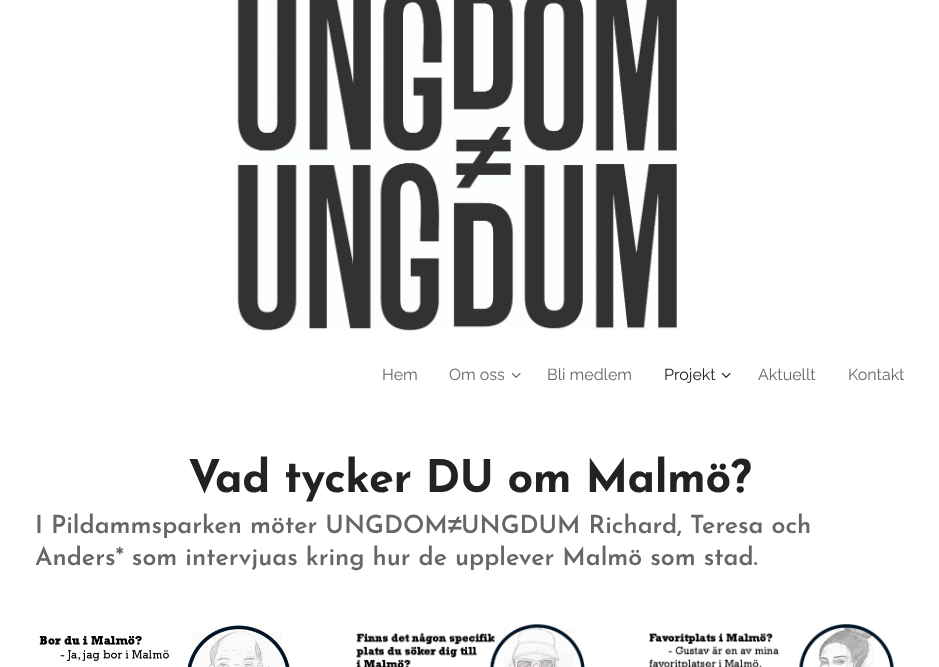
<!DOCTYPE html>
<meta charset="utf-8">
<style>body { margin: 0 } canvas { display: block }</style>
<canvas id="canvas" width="939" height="667"></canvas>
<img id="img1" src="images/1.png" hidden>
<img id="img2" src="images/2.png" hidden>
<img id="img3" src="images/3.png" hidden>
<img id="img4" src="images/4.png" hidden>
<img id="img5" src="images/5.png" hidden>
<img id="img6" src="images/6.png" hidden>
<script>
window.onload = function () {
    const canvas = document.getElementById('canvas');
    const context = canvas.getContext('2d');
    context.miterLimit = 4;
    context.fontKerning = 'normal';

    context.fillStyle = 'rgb(255, 255, 255)';
    context.fillRect(0, 0, 939, 667);
    context.drawImage(document.getElementById('img1'), 511, 372, 10, 6);
    context.drawImage(document.getElementById('img2'), 721, 372, 10, 6);
    context.drawImage(document.getElementById('img3'), 235, 0, 446, 331);
    context.drawImage(document.getElementById('img4'), 39, 625, 251, 42);
    context.drawImage(document.getElementById('img5'), 356, 623, 229, 44);
    context.drawImage(document.getElementById('img6'), 649, 623, 245, 44);
    context.font = '16px Raleway';
    context.fillStyle = 'rgb(102, 102, 102)';
    context.fillText('Hem', 382, 380);
    context.fillText('Om oss', 449, 380);
    context.fillText('Bli medlem', 547, 380);
    context.fillStyle = 'rgb(34, 34, 34)';
    context.fillText('Projekt', 664, 380);
    context.fillStyle = 'rgb(102, 102, 102)';
    context.fillText('Aktuellt', 758, 380);
    context.fillText('Kontakt', 848, 380);
    context.letterSpacing = '-0.45px';
    context.font = 'bold 45px Josefin Sans';
    context.fillStyle = 'rgb(34, 34, 34)';
    context.fillText('Vad tycker DU om Malmö?', 188, 492);
    context.letterSpacing = '0px';
    context.font = '600 25px Josefin Sans';
    context.fillStyle = 'rgb(102, 102, 102)';
    context.fillText('I Pildammsparken möter UNGDOM', 35, 533);
    context.font = 'bold 25px Liberation Sans';
    context.fillText('≠', 448, 533);
    context.font = '600 25px Josefin Sans';
    context.fillText('UNGDUM Richard, Teresa och', 461, 533);
    context.fillText('Anders* som intervjuas kring hur de upplever Malmö som stad.', 35, 565);
};
</script>
